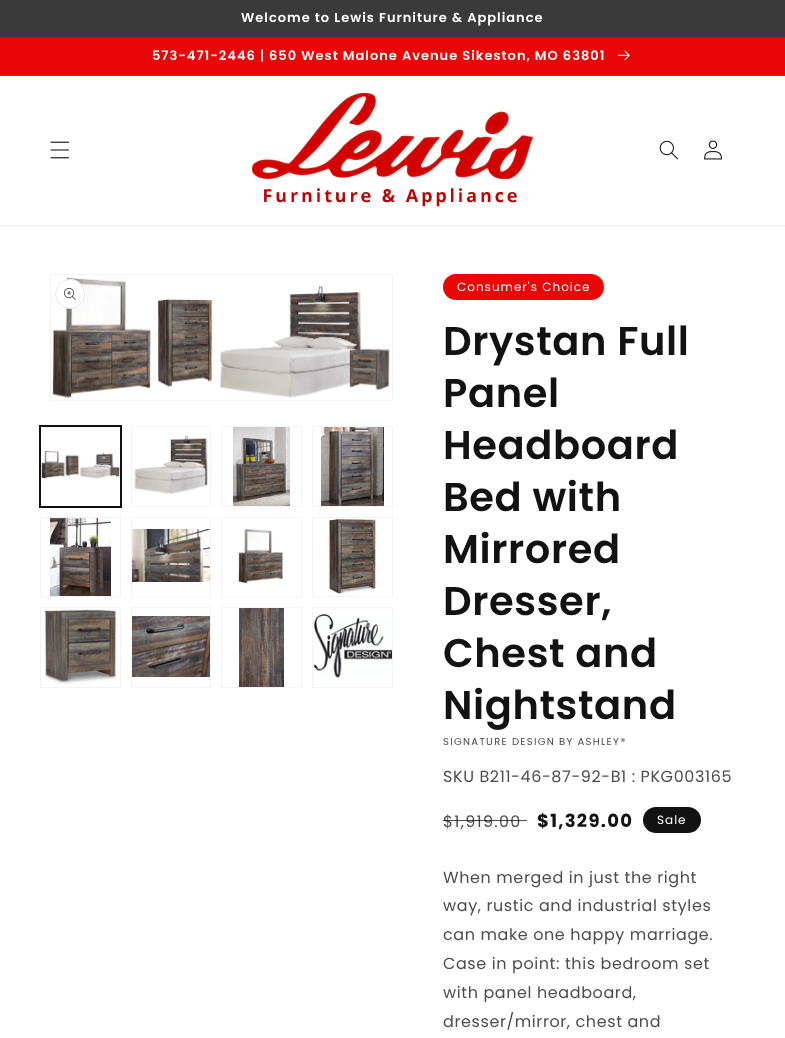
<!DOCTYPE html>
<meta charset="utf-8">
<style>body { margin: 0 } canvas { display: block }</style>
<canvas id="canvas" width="785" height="1038"></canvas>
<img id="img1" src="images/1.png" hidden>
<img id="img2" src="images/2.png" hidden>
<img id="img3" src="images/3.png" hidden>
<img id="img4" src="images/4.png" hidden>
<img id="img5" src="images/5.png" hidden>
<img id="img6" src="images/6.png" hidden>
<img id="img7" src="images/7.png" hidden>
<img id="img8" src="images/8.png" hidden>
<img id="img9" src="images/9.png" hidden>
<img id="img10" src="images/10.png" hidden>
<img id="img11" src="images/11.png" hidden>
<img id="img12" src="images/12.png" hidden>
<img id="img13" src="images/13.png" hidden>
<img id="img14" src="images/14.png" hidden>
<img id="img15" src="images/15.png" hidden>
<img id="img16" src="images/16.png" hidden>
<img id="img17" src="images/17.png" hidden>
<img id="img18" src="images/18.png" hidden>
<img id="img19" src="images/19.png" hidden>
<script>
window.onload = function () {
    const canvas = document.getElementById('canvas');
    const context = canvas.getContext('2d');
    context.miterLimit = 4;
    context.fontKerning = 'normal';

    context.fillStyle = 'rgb(255, 255, 255)';
    context.fillRect(0, 0, 785, 1038);
    context.fillStyle = 'rgb(58, 58, 58)';
    context.fillRect(0, 0, 785, 37);
    context.fillStyle = 'rgb(74, 74, 74)';
    context.fillRect(0, 37, 785, 1);
    context.fillStyle = 'rgb(234, 6, 6)';
    context.fillRect(0, 38, 785, 37);
    context.fillStyle = 'rgb(236, 26, 26)';
    context.fillRect(0, 75, 785, 1);
    context.drawImage(document.getElementById('img1'), 618, 50, 12, 11);
    context.fillStyle = 'rgb(236, 236, 236)';
    context.fillRect(0, 225, 785, 1);
    context.drawImage(document.getElementById('img2'), 50, 141, 20, 18);
    context.drawImage(document.getElementById('img3'), 252, 93, 281, 114);
    context.drawImage(document.getElementById('img4'), 659, 140, 19, 20);
    context.drawImage(document.getElementById('img5'), 704, 140, 18, 20);
    context.strokeStyle = 'rgb(243, 243, 243)';
    context.strokeRect(50.5, 274.5, 342, 126);
    context.drawImage(document.getElementById('img6'), 52, 277, 338, 121);
    context.fillStyle = 'rgb(255, 255, 255)';
    context.beginPath();
    context.arc(70, 294, 15, 0, 2 * Math.PI);
    context.fill();
    context.beginPath();
    context.arc(70, 294, 14.5, 0, 2 * Math.PI);
    context.strokeStyle = 'rgba(18, 18, 18, 0.1)';
    context.stroke();
    context.drawImage(document.getElementById('img7'), 64, 288, 12, 12);
    context.strokeStyle = 'rgb(18, 18, 18)';
    context.strokeRect(39.5, 425.5, 82, 82);
    context.strokeRect(40.5, 426.5, 80, 80);
    context.drawImage(document.getElementById('img8'), 41, 450, 79, 29);
    context.strokeStyle = 'rgb(243, 243, 243)';
    context.strokeRect(131.5, 426.5, 79, 80);
    context.drawImage(document.getElementById('img9'), 132, 435, 77, 60);
    context.strokeRect(221.5, 426.5, 80, 80);
    context.drawImage(document.getElementById('img10'), 233, 427, 57, 79);
    context.strokeRect(312.5, 426.5, 80, 80);
    context.drawImage(document.getElementById('img11'), 321, 427, 63, 79);
    context.strokeRect(40.5, 517.5, 80, 79);
    context.drawImage(document.getElementById('img12'), 50, 518, 61, 78);
    context.strokeRect(131.5, 517.5, 79, 79);
    context.drawImage(document.getElementById('img13'), 132, 529, 78, 53);
    context.strokeRect(221.5, 517.5, 80, 79);
    context.drawImage(document.getElementById('img14'), 238, 527, 48, 57);
    context.strokeRect(312.5, 517.5, 80, 79);
    context.drawImage(document.getElementById('img15'), 328, 518, 48, 77);
    context.strokeRect(40.5, 607.5, 80, 80);
    context.drawImage(document.getElementById('img16'), 44, 608, 73, 76);
    context.strokeRect(131.5, 607.5, 79, 80);
    context.drawImage(document.getElementById('img17'), 132, 616, 78, 61);
    context.strokeRect(221.5, 607.5, 80, 80);
    context.drawImage(document.getElementById('img18'), 239, 608, 45, 79);
    context.strokeRect(312.5, 607.5, 80, 80);
    context.drawImage(document.getElementById('img19'), 313, 614, 79, 64);
    context.fillStyle = 'rgb(234, 6, 6)';
    context.beginPath();
    context.roundRect(443, 274, 161, 26, 13);
    context.fill();
    context.beginPath();
    context.roundRect(443.5, 274.5, 160, 25, 12.5);
    context.strokeStyle = 'rgba(234, 6, 6, 0.1)';
    context.stroke();
    context.fillStyle = 'rgb(18, 18, 18)';
    context.beginPath();
    context.roundRect(643, 807, 58, 26, 13);
    context.fill();
    context.beginPath();
    context.roundRect(643.5, 807.5, 57, 25, 12.5);
    context.strokeStyle = 'rgba(18, 18, 18, 0.1)';
    context.stroke();
    context.letterSpacing = '1px';
    context.font = '600 13px Poppins';
    context.fillStyle = 'rgb(255, 255, 255)';
    context.fillText('Welcome to Lewis Furniture & Appliance', 241, 22);
    context.fillText('573-471-2446 | 650 West Malone Avenue Sikeston, MO 63801', 152, 60);
    context.font = '12px Poppins';
    context.fillText('Consumer\'s Choice', 457, 291);
    context.letterSpacing = '0.6px';
    context.font = '600 40px Poppins';
    context.fillStyle = 'rgb(18, 18, 18)';
    context.fillText('Drystan Full', 443, 355);
    context.fillText('Panel', 443, 407);
    context.fillText('Headboard', 443, 459);
    context.fillText('Bed with', 443, 511);
    context.fillText('Mirrored', 443, 563);
    context.fillText('Dresser,', 443, 615);
    context.fillText('Chest and', 443, 667);
    context.fillText('Nightstand', 443, 719);
    context.letterSpacing = '1.3px';
    context.font = '10px Poppins';
    context.fillStyle = 'rgb(77, 77, 77)';
    context.fillText('SIGNATURE DESIGN BY ASHLEY®', 443, 745);
    context.letterSpacing = '0.6px';
    context.font = '16px Poppins';
    context.fillText('SKU B211-46-87-92-B1 : PKG003165', 443, 782);
    context.letterSpacing = '1.3px';
    context.fillText('$1,919.00', 443, 827);
    context.fillStyle = 'rgba(18, 18, 18, 0.75)';
    context.fillRect(443, 820, 84, 1);
    context.font = 'bold 18px Poppins';
    context.fillStyle = 'rgb(18, 18, 18)';
    context.fillText('$1,329.00', 537, 827);
    context.letterSpacing = '1px';
    context.font = '12px Poppins';
    context.fillStyle = 'rgb(255, 255, 255)';
    context.fillText('Sale', 657, 824);
    context.letterSpacing = '0.6px';
    context.font = '16px Poppins';
    context.fillStyle = 'rgb(77, 77, 77)';
    context.fillText('When merged in just the right', 443, 883);
    context.fillText('way, rustic and industrial styles', 443, 911);
    context.fillText('can make one happy marriage.', 443, 940);
    context.fillText('Case in point: this bedroom set', 443, 969);
    context.fillText('with panel headboard,', 443, 998);
    context.fillText('dresser/mirror, chest and', 443, 1027);
};
</script>
